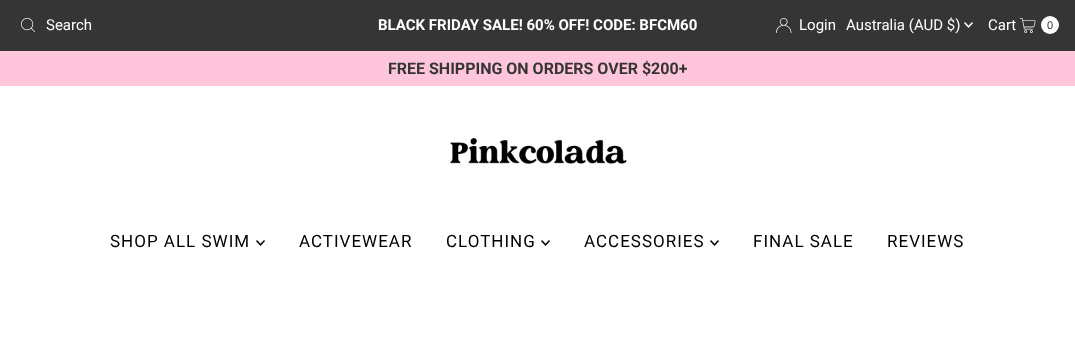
<!DOCTYPE html>
<meta charset="utf-8">
<style>body { margin: 0 } canvas { display: block }</style>
<canvas id="canvas" width="1075" height="342"></canvas>
<img id="img1" src="images/1.png" hidden>
<img id="img2" src="images/2.png" hidden>
<img id="img3" src="images/3.png" hidden>
<img id="img4" src="images/4.png" hidden>
<img id="img5" src="images/5.png" hidden>
<img id="img6" src="images/6.png" hidden>
<script>
window.onload = function () {
    const canvas = document.getElementById('canvas');
    const context = canvas.getContext('2d');
    context.miterLimit = 4;
    context.fontKerning = 'normal';

    context.fillStyle = 'rgb(255, 255, 255)';
    context.fillRect(0, 0, 1075, 342);
    context.fillStyle = 'rgb(53, 53, 53)';
    context.fillRect(0, 0, 1075, 51);
    context.drawImage(document.getElementById('img1'), 21, 18, 14, 14);
    context.drawImage(document.getElementById('img2'), 776, 18, 16, 15);
    context.drawImage(document.getElementById('img3'), 964, 22, 9, 6);
    context.drawImage(document.getElementById('img4'), 1020, 18, 16, 15);
    context.fillStyle = 'rgb(255, 255, 255)';
    context.beginPath();
    context.arc(1050, 25, 9, 0, 2 * Math.PI);
    context.fill();
    context.fillStyle = 'rgb(255, 197, 219)';
    context.fillRect(0, 51, 1075, 35);
    context.drawImage(document.getElementById('img5'), 450, 138, 177, 26);
    context.drawImage(document.getElementById('img6'), 256, 240, 9, 6);
    context.drawImage(document.getElementById('img6'), 541, 240, 9, 6);
    context.drawImage(document.getElementById('img6'), 710, 240, 9, 6);
    context.font = '15px Roboto';
    context.fillStyle = 'rgb(255, 255, 255)';
    context.fillText('Search', 46, 30);
    context.font = 'bold 15px Roboto';
    context.fillText('BLACK FRIDAY SALE! 60% OFF! CODE: BFCM60', 378, 30);
    context.font = '15px Roboto';
    context.fillText('Login', 799, 30);
    context.fillText('Australia (AUD $)', 846, 30);
    context.fillText('Cart', 988, 30);
    context.font = '11px Liberation Sans';
    context.fillStyle = 'rgb(53, 53, 53)';
    context.fillText('0', 1047, 29);
    context.font = 'bold 16px Roboto';
    context.fillText('FREE SHIPPING ON ORDERS OVER $200+', 388, 74);
    context.letterSpacing = '1px';
    context.font = '17px Roboto';
    context.fillStyle = 'rgb(0, 0, 0)';
    context.fillText('SHOP ALL SWIM', 110, 247);
    context.fillText('ACTIVEWEAR', 299, 247);
    context.fillText('CLOTHING', 446, 247);
    context.fillText('ACCESSORIES', 584, 247);
    context.fillText('FINAL SALE', 753, 247);
    context.fillText('REVIEWS', 887, 247);
};
</script>
